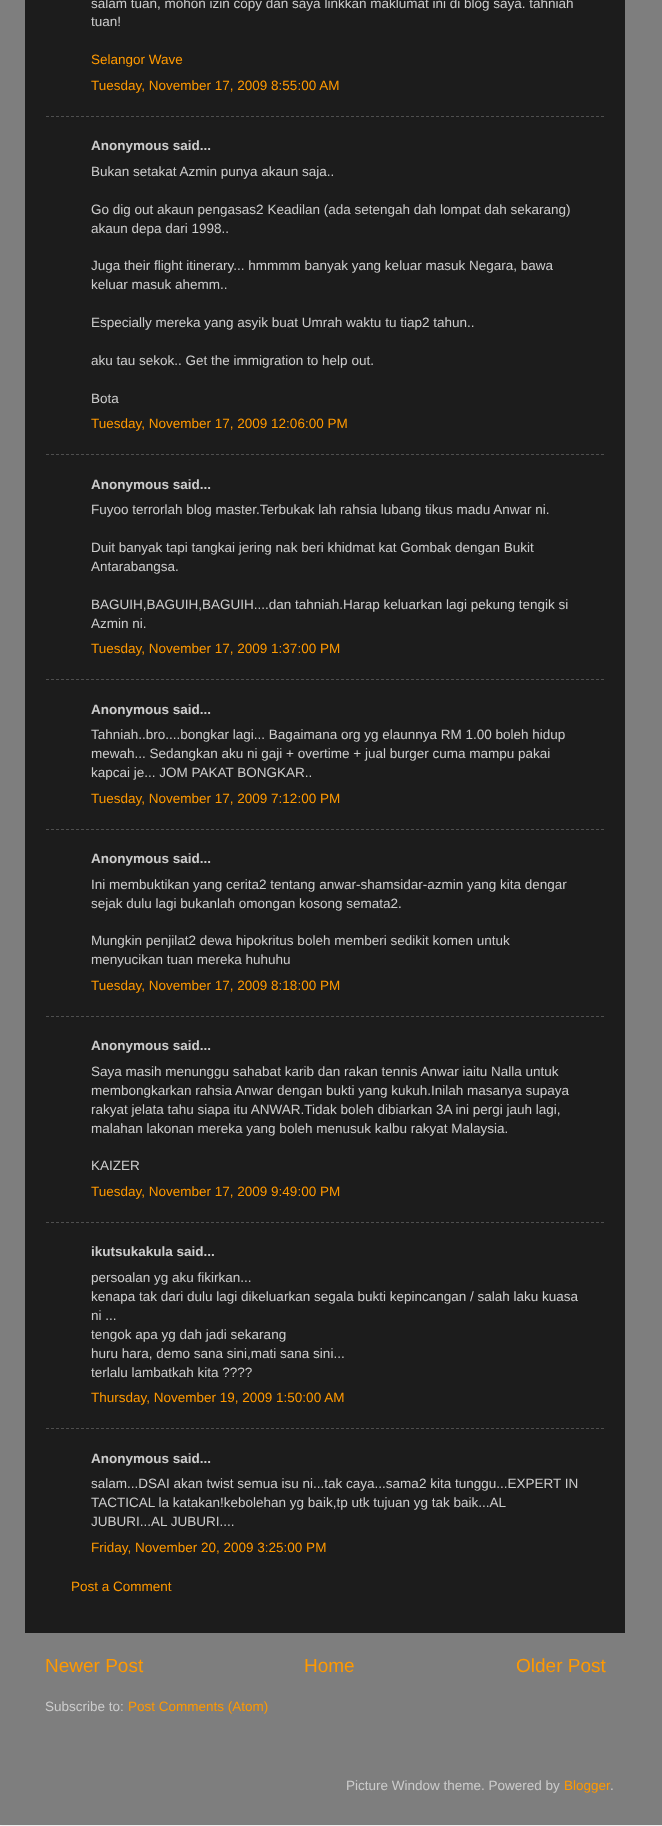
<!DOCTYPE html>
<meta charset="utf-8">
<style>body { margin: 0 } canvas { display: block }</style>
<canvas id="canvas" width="662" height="1826"></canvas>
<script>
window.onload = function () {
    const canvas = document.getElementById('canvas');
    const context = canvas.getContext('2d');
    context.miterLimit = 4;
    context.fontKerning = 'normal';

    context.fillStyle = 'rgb(250, 250, 250)';
    context.fillRect(0, 0, 662, 1826);
    context.fillStyle = 'rgba(0, 0, 0, 0.15)';
    context.filter = 'blur(1.5px)';
    context.beginPath();
    context.rect(0, -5, 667, 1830);
    context.fill();
    context.filter = 'none';
    context.fillStyle = 'rgb(126, 126, 126)';
    context.fillRect(0, 0, 662, 1825);
    context.fillStyle = 'rgb(28, 28, 28)';
    context.fillRect(25, 0, 600, 1633);
    context.beginPath();
    context.moveTo(46, 116.5);
    context.lineTo(604, 116.5);
    context.strokeStyle = 'rgb(78, 78, 78)';
    context.setLineDash([3, 2]);
    context.stroke();
    context.beginPath();
    context.moveTo(46, 454.5);
    context.lineTo(604, 454.5);
    context.stroke();
    context.beginPath();
    context.moveTo(46, 679.5);
    context.lineTo(604, 679.5);
    context.stroke();
    context.beginPath();
    context.moveTo(46, 829.5);
    context.lineTo(604, 829.5);
    context.stroke();
    context.beginPath();
    context.moveTo(46, 1016.5);
    context.lineTo(604, 1016.5);
    context.stroke();
    context.beginPath();
    context.moveTo(46, 1222.5);
    context.lineTo(604, 1222.5);
    context.stroke();
    context.beginPath();
    context.moveTo(46, 1428.5);
    context.lineTo(604, 1428.5);
    context.stroke();
    context.font = '13.5px Liberation Sans';
    context.fillStyle = 'rgb(204, 204, 204)';
    context.fillText('salam tuan, mohon izin copy dan saya linkkan maklumat ini di blog saya. tahniah', 91, 8);
    context.fillText('tuan!', 91, 26);
    context.fillStyle = 'rgb(255, 153, 0)';
    context.fillText('Selangor Wave', 91, 64);
    context.fillText('Tuesday, November 17, 2009 8:55:00 AM', 91, 90);
    context.font = 'bold 13.5px Liberation Sans';
    context.fillStyle = 'rgb(204, 204, 204)';
    context.fillText('Anonymous said...', 91, 150);
    context.font = '13.5px Liberation Sans';
    context.fillText('Bukan setakat Azmin punya akaun saja..', 91, 176);
    context.fillText('Go dig out akaun pengasas2 Keadilan (ada setengah dah lompat dah sekarang)', 91, 214);
    context.fillText('akaun depa dari 1998..', 91, 233);
    context.fillText('Juga their flight itinerary... hmmmm banyak yang keluar masuk Negara, bawa', 91, 270);
    context.fillText('keluar masuk ahemm..', 91, 289);
    context.fillText('Especially mereka yang asyik buat Umrah waktu tu tiap2 tahun..', 91, 327);
    context.fillText('aku tau sekok.. Get the immigration to help out.', 91, 365);
    context.fillText('Bota', 91, 403);
    context.fillStyle = 'rgb(255, 153, 0)';
    context.fillText('Tuesday, November 17, 2009 12:06:00 PM', 91, 428);
    context.font = 'bold 13.5px Liberation Sans';
    context.fillStyle = 'rgb(204, 204, 204)';
    context.fillText('Anonymous said...', 91, 489);
    context.font = '13.5px Liberation Sans';
    context.fillText('Fuyoo terrorlah blog master.Terbukak lah rahsia lubang tikus madu Anwar ni.', 91, 514);
    context.fillText('Duit banyak tapi tangkai jering nak beri khidmat kat Gombak dengan Bukit', 91, 552);
    context.fillText('Antarabangsa.', 91, 571);
    context.fillText('BAGUIH,BAGUIH,BAGUIH....dan tahniah.Harap keluarkan lagi pekung tengik si', 91, 609);
    context.fillText('Azmin ni.', 91, 628);
    context.fillStyle = 'rgb(255, 153, 0)';
    context.fillText('Tuesday, November 17, 2009 1:37:00 PM', 91, 653);
    context.font = 'bold 13.5px Liberation Sans';
    context.fillStyle = 'rgb(204, 204, 204)';
    context.fillText('Anonymous said...', 91, 714);
    context.font = '13.5px Liberation Sans';
    context.fillText('Tahniah..bro....bongkar lagi... Bagaimana org yg elaunnya RM 1.00 boleh hidup', 91, 739);
    context.fillText('mewah... Sedangkan aku ni gaji + overtime + jual burger cuma mampu pakai', 91, 758);
    context.fillText('kapcai je... JOM PAKAT BONGKAR..', 91, 777);
    context.fillStyle = 'rgb(255, 153, 0)';
    context.fillText('Tuesday, November 17, 2009 7:12:00 PM', 91, 803);
    context.font = 'bold 13.5px Liberation Sans';
    context.fillStyle = 'rgb(204, 204, 204)';
    context.fillText('Anonymous said...', 91, 863);
    context.font = '13.5px Liberation Sans';
    context.fillText('Ini membuktikan yang cerita2 tentang anwar-shamsidar-azmin yang kita dengar', 91, 889);
    context.fillText('sejak dulu lagi bukanlah omongan kosong semata2.', 91, 908);
    context.fillText('Mungkin penjilat2 dewa hipokritus boleh memberi sedikit komen untuk', 91, 945);
    context.fillText('menyucikan tuan mereka huhuhu', 91, 964);
    context.fillStyle = 'rgb(255, 153, 0)';
    context.fillText('Tuesday, November 17, 2009 8:18:00 PM', 91, 990);
    context.font = 'bold 13.5px Liberation Sans';
    context.fillStyle = 'rgb(204, 204, 204)';
    context.fillText('Anonymous said...', 91, 1050);
    context.font = '13.5px Liberation Sans';
    context.fillText('Saya masih menunggu sahabat karib dan rakan tennis Anwar iaitu Nalla untuk', 91, 1076);
    context.fillText('membongkarkan rahsia Anwar dengan bukti yang kukuh.Inilah masanya supaya', 91, 1095);
    context.fillText('rakyat jelata tahu siapa itu ANWAR.Tidak boleh dibiarkan 3A ini pergi jauh lagi,', 91, 1114);
    context.fillText('malahan lakonan mereka yang boleh menusuk kalbu rakyat Malaysia.', 91, 1133);
    context.fillText('KAIZER', 91, 1170);
    context.fillStyle = 'rgb(255, 153, 0)';
    context.fillText('Tuesday, November 17, 2009 9:49:00 PM', 91, 1196);
    context.font = 'bold 13.5px Liberation Sans';
    context.fillStyle = 'rgb(204, 204, 204)';
    context.fillText('ikutsukakula said...', 91, 1256);
    context.font = '13.5px Liberation Sans';
    context.fillText('persoalan yg aku fikirkan...', 91, 1282);
    context.fillText('kenapa tak dari dulu lagi dikeluarkan segala bukti kepincangan / salah laku kuasa', 91, 1301);
    context.fillText('ni ...', 91, 1320);
    context.fillText('tengok apa yg dah jadi sekarang', 91, 1339);
    context.fillText('huru hara, demo sana sini,mati sana sini...', 91, 1358);
    context.fillText('terlalu lambatkah kita ????', 91, 1377);
    context.fillStyle = 'rgb(255, 153, 0)';
    context.fillText('Thursday, November 19, 2009 1:50:00 AM', 91, 1402);
    context.font = 'bold 13.5px Liberation Sans';
    context.fillStyle = 'rgb(204, 204, 204)';
    context.fillText('Anonymous said...', 91, 1463);
    context.font = '13.5px Liberation Sans';
    context.fillText('salam...DSAI akan twist semua isu ni...tak caya...sama2 kita tunggu...EXPERT IN', 91, 1488);
    context.fillText('TACTICAL la katakan!kebolehan yg baik,tp utk tujuan yg tak baik...AL', 91, 1507);
    context.fillText('JUBURI...AL JUBURI....', 91, 1526);
    context.fillStyle = 'rgb(255, 153, 0)';
    context.fillText('Friday, November 20, 2009 3:25:00 PM', 91, 1552);
    context.fillText('Post a Comment', 71, 1591);
    context.font = '19px Liberation Sans';
    context.fillText('Newer Post', 45, 1672);
    context.fillText('Home', 304, 1672);
    context.fillText('Older Post', 516, 1672);
    context.font = '13.5px Liberation Sans';
    context.fillStyle = 'rgb(204, 204, 204)';
    context.fillText('Subscribe to:', 45, 1711);
    context.fillStyle = 'rgb(255, 153, 0)';
    context.fillText('Post Comments (Atom)', 128, 1711);
    context.fillStyle = 'rgb(204, 204, 204)';
    context.fillText('Picture Window theme. Powered by', 346, 1790);
    context.fillStyle = 'rgb(255, 153, 0)';
    context.fillText('Blogger', 564, 1790);
    context.fillStyle = 'rgb(204, 204, 204)';
    context.fillText('.', 610, 1790);
};
</script>
